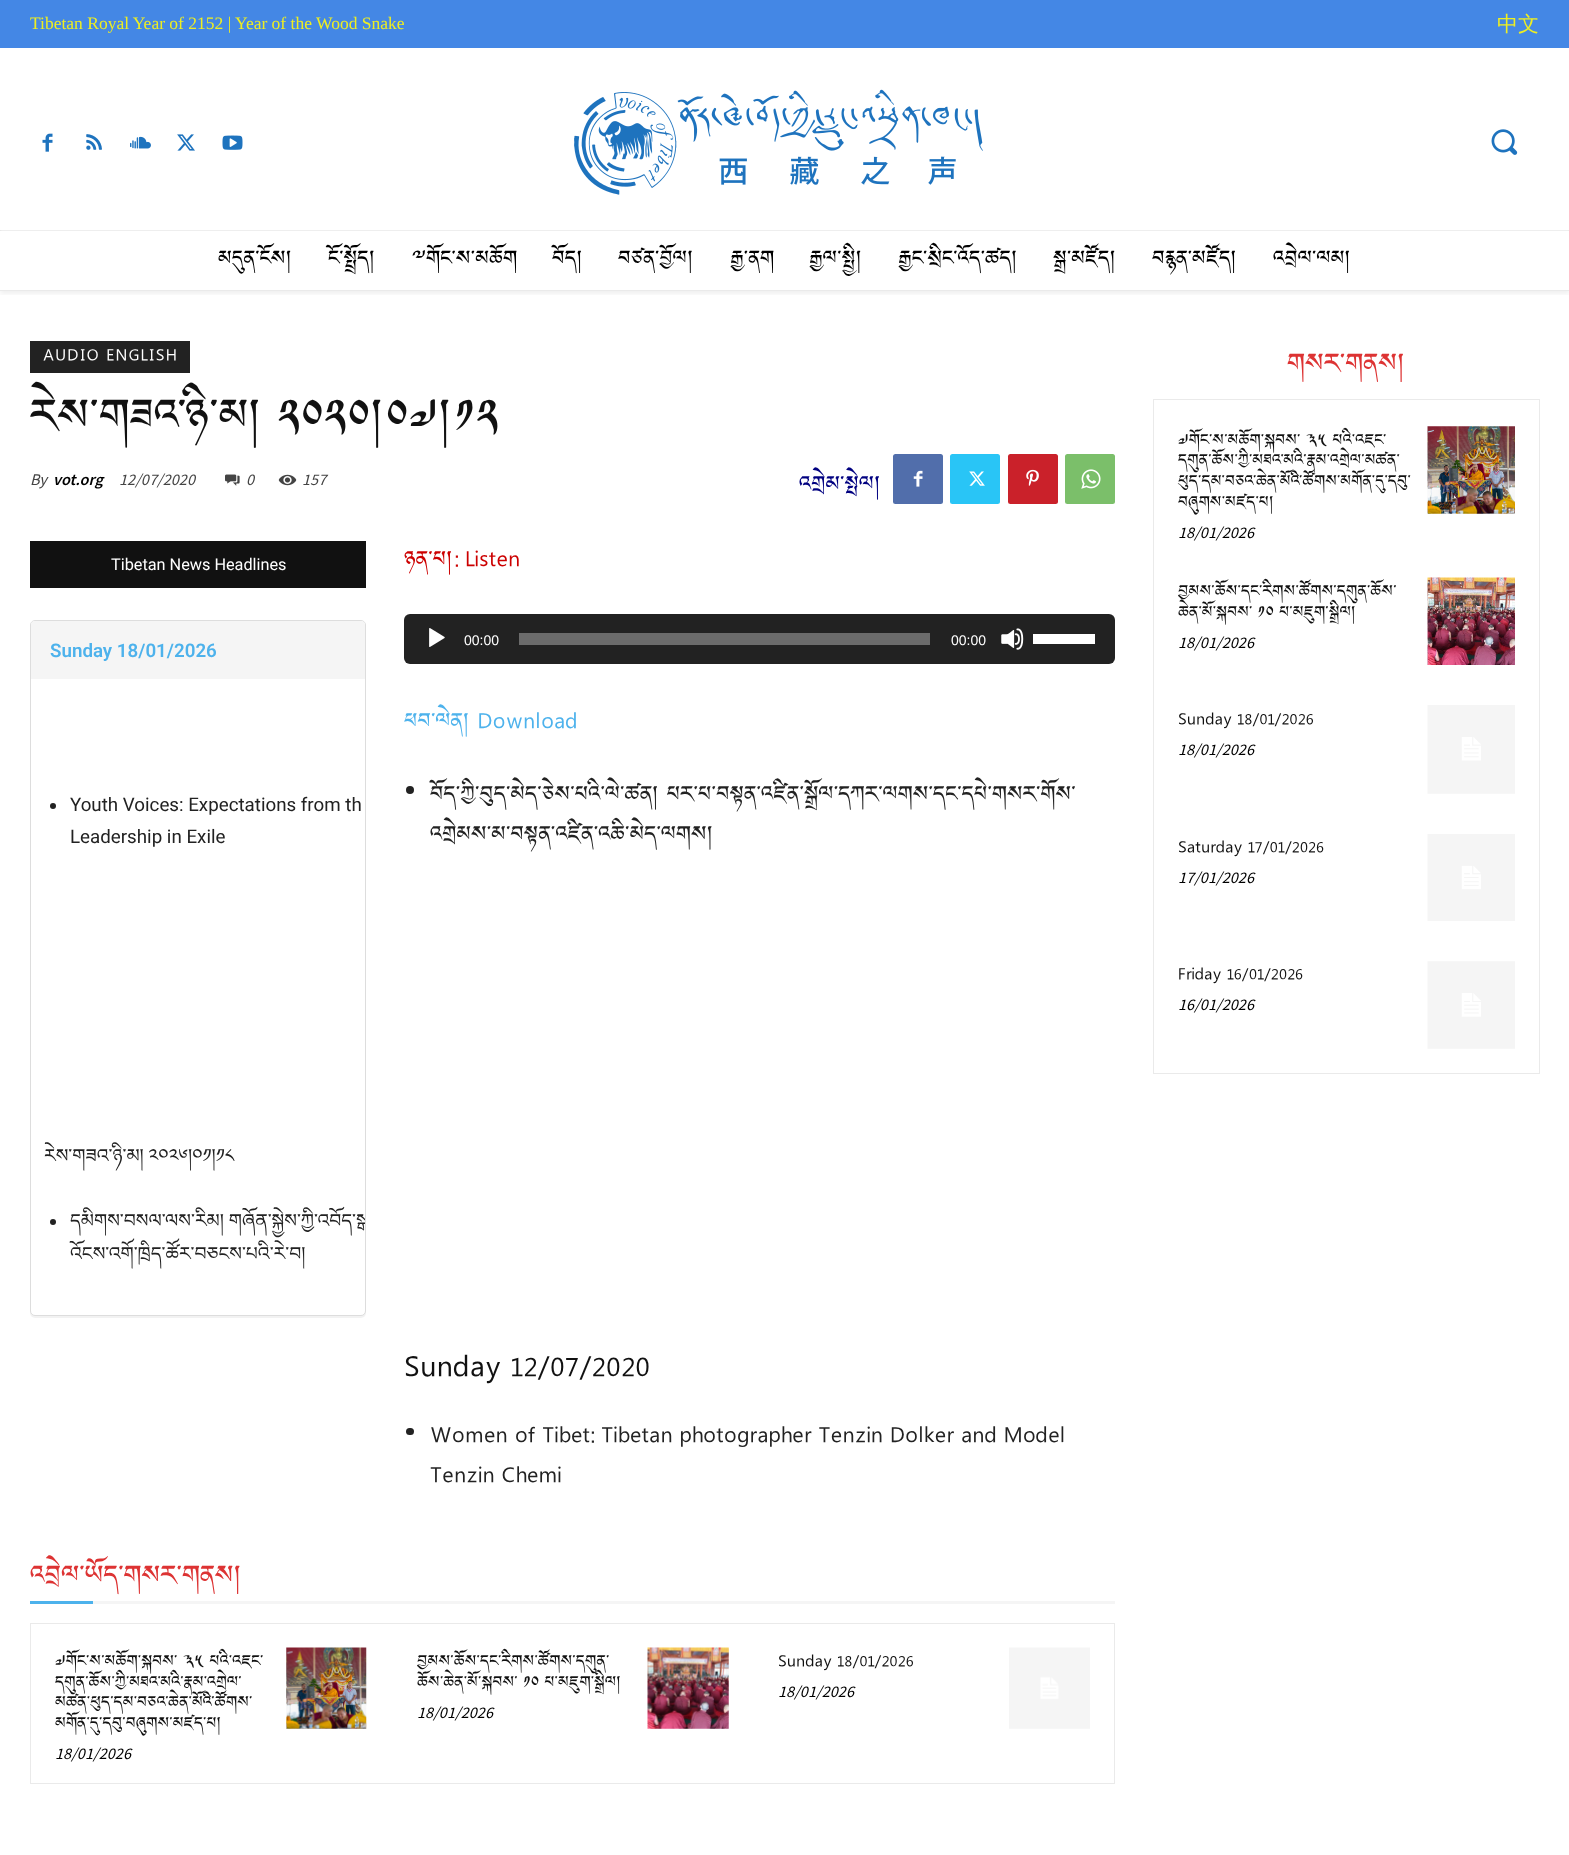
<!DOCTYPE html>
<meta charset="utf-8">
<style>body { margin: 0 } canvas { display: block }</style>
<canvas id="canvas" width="1569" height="1855"></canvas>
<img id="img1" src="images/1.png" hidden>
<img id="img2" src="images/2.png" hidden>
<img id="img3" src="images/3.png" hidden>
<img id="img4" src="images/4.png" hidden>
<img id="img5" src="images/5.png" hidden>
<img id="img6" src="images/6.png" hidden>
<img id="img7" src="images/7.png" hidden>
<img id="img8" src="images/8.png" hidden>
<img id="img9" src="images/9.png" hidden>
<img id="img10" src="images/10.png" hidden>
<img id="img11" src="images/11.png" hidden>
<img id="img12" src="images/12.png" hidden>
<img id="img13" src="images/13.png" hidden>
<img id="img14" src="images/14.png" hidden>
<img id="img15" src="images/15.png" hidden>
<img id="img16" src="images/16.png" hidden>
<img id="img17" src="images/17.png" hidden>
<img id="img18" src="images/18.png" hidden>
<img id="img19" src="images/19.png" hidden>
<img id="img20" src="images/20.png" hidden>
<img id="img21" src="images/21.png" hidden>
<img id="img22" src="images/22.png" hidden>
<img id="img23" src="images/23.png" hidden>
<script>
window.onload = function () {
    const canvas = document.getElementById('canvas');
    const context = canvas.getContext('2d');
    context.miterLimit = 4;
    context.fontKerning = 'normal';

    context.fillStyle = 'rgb(255, 255, 255)';
    context.fillRect(0, 0, 1569, 1855);
    context.fillStyle = 'rgb(68, 135, 229)';
    context.fillRect(0, 0, 1569, 48);
    context.drawImage(document.getElementById('img1'), 42, 133, 11, 19);
    context.drawImage(document.getElementById('img2'), 86, 134, 16, 16);
    context.drawImage(document.getElementById('img3'), 130, 136, 21, 13);
    context.drawImage(document.getElementById('img4'), 177, 134, 18, 17);
    context.drawImage(document.getElementById('img5'), 222, 135, 21, 15);
    context.drawImage(document.getElementById('img6'), 574, 89, 409, 106);
    context.drawImage(document.getElementById('img7'), 1491, 129, 27, 26);
    context.fillStyle = 'rgb(234, 234, 234)';
    context.fillRect(0, 290, 1569, 1);
    context.save();
    context.beginPath();
    context.rect(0, 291, 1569, 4);
    context.clip();
    context.fillStyle = 'rgba(0, 0, 0, 0.06)';
    context.filter = 'blur(2.5px)';
    context.beginPath();
    context.rect(0, 198, 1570, 96);
    context.fill();
    context.filter = 'none';
    context.restore();
    context.save();
    context.beginPath();
    context.rect(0, 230, 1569, 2);
    context.clip();
    context.fillStyle = 'rgb(232, 232, 232)';
    context.filter = 'blur(0.5px)';
    context.beginPath();
    context.rect(0, 215, 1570, 16);
    context.fill();
    context.filter = 'none';
    context.restore();
    context.fillStyle = 'rgba(255, 255, 255, 0.25)';
    context.beginPath();
    context.roundRect(0, 230, 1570, 60, 2.5);
    context.fill();
    context.fillStyle = 'rgb(34, 34, 34)';
    context.fillRect(30, 341, 160, 32);
    context.drawImage(document.getElementById('img8'), 225, 474, 15, 12);
    context.drawImage(document.getElementById('img9'), 278, 474, 19, 12);
    context.fillStyle = 'rgb(81, 110, 171)';
    context.beginPath();
    context.roundRect(893, 454, 50, 50, 2.5);
    context.fill();
    context.drawImage(document.getElementById('img10'), 913, 470, 10, 17);
    context.fillStyle = 'rgb(41, 197, 246)';
    context.beginPath();
    context.roundRect(950, 454, 50, 50, 2.5);
    context.fill();
    context.drawImage(document.getElementById('img11'), 969, 471, 16, 15);
    context.fillStyle = 'rgb(202, 33, 42)';
    context.beginPath();
    context.roundRect(1008, 454, 50, 50, 2.5);
    context.fill();
    context.drawImage(document.getElementById('img12'), 1026, 469, 13, 17);
    context.fillStyle = 'rgb(123, 191, 106)';
    context.beginPath();
    context.roundRect(1065, 454, 50, 50, 2.5);
    context.fill();
    context.drawImage(document.getElementById('img13'), 1081, 469, 20, 20);
    context.fillStyle = 'rgb(17, 17, 17)';
    context.fillRect(30, 541, 336, 47);
    context.fillStyle = 'rgba(0, 0, 0, 0.05)';
    context.filter = 'blur(0.5px)';
    context.beginPath();
    context.roundRect(30, 621, 336, 697, 5);
    context.fill();
    context.filter = 'none';
    context.fillStyle = 'rgb(255, 255, 255)';
    context.beginPath();
    context.roundRect(30.5, 620.5, 335, 695, 4.5);
    context.fill();
    context.strokeStyle = 'rgb(221, 221, 221)';
    context.stroke();
    context.fillStyle = 'rgb(245, 245, 245)';
    context.beginPath();
    context.roundRect(31, 621, 334, 58, [4, 4, 0, 0]);
    context.fill();
    context.fillStyle = 'rgb(34, 34, 34)';
    context.beginPath();
    context.arc(53, 806, 3, 0, 2 * Math.PI);
    context.fill();
    context.beginPath();
    context.arc(53, 1222, 3, 0, 2 * Math.PI);
    context.fill();
    context.beginPath();
    context.roundRect(404, 614, 711, 50, 6);
    context.fill();
    context.drawImage(document.getElementById('img14'), 429, 628, 16, 19);
    context.fillStyle = 'rgb(107, 107, 107)';
    context.fillRect(519, 633, 411, 12);
    context.drawImage(document.getElementById('img15'), 1001, 628, 23, 22);
    context.fillStyle = 'rgb(255, 255, 255)';
    context.fillRect(1033, 634, 62, 10);
    context.fillStyle = 'rgb(34, 34, 34)';
    context.beginPath();
    context.arc(410, 790, 4, 0, 2 * Math.PI);
    context.fill();
    context.beginPath();
    context.roundRect(406, 1428, 8, 7, 3.5);
    context.fill();
    context.fillStyle = 'rgb(77, 178, 236)';
    context.fillRect(30, 1601, 63, 3);
    context.fillStyle = 'rgb(245, 245, 245)';
    context.fillRect(93, 1601, 1022, 3);
    context.strokeStyle = 'rgb(234, 234, 234)';
    context.strokeRect(30.5, 1623.5, 1084, 160);
    context.drawImage(document.getElementById('img16'), 286, 1647, 81, 82);
    context.drawImage(document.getElementById('img17'), 647, 1647, 82, 82);
    context.drawImage(document.getElementById('img18'), 1009, 1647, 81, 82);
    context.strokeRect(1153.5, 399.5, 386, 674);
    context.drawImage(document.getElementById('img19'), 1427, 426, 88, 88);
    context.drawImage(document.getElementById('img20'), 1427, 577, 88, 88);
    context.drawImage(document.getElementById('img21'), 1427, 705, 88, 89);
    context.drawImage(document.getElementById('img22'), 1427, 834, 88, 87);
    context.drawImage(document.getElementById('img23'), 1427, 961, 88, 88);
    context.font = '17.5px Liberation Serif';
    context.fillStyle = 'rgb(238, 238, 34)';
    context.fillText('Tibetan Royal Year of 2152 |', 30, 29);
    context.fillText('Year of the Wood Snake', 235, 29);
    context.font = '500 21px WenQuanYi Zen Hei';
    context.fillText('中文', 1497, 31);
    context.font = '23.75px "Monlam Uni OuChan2"';
    context.fillStyle = 'rgb(0, 0, 0)';
    context.fillText('མདུན་ངོས།', 218, 262);
    context.fillText('ངོ་སྤྲོད།', 328, 262);
    context.fillText('༸གོང་ས་མཆོག', 412, 262);
    context.fillText('བོད།', 552, 262);
    context.fillText('བཙན་བྱོལ།', 618, 262);
    context.fillText('རྒྱ་ནག', 730, 262);
    context.fillText('རྒྱལ་སྤྱི།', 809, 262);
    context.fillText('རྒྱང་སྲིང་འོད་ཚད།', 898, 262);
    context.fillText('སྒྲ་མཛོད།', 1053, 262);
    context.fillText('བརྙན་མཛོད།', 1152, 262);
    context.fillText('འབྲེལ་ལམ།', 1273, 262);
    context.letterSpacing = '1.25px';
    context.font = '18.75px "Monlam Uni OuChan2"';
    context.fillStyle = 'rgb(255, 255, 255)';
    context.fillText('AUDIO ENGLISH', 43, 358);
    context.letterSpacing = '0px';
    context.font = '51.25px "Monlam Uni OuChan2"';
    context.fillStyle = 'rgb(17, 17, 17)';
    context.fillText('རེས་གཟའ་ཉི་མ། ༢༠༢༠།༠༧།༡༢', 30, 424);
    context.font = 'italic 16.25px Source Sans Pro';
    context.fillStyle = 'rgb(68, 68, 68)';
    context.fillText('By', 30, 485);
    context.font = 'italic 600 16.25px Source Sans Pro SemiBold';
    context.fillStyle = 'rgb(0, 0, 0)';
    context.fillText('vot.org', 53, 485);
    context.font = 'italic 16.25px Source Sans Pro';
    context.fillStyle = 'rgb(68, 68, 68)';
    context.fillText('12/07/2020', 119, 485);
    context.fillText('0', 246, 485);
    context.fillText('157', 302, 485);
    context.font = '25px "Monlam Uni OuChan2"';
    context.fillStyle = 'rgb(0, 0, 128)';
    context.fillText('འགྲེམ་སྤེལ།', 799, 488);
    context.font = '16.25px Roboto';
    context.fillStyle = 'rgb(255, 255, 255)';
    context.fillText('Tibetan News Headlines', 111, 570);
    context.font = '600 18.75px Roboto';
    context.fillStyle = 'rgb(77, 178, 236)';
    context.fillText('Sunday 18/01/2026', 50, 657);
    context.font = '18.75px Roboto';
    context.fillStyle = 'rgb(34, 34, 34)';
    context.fillText('Youth Voices: Expectations from th', 70, 811);
    context.fillText('Leadership in Exile', 70, 843);
    context.font = '18.75px Noto Serif Tibetan';
    context.fillText('ཪེས་གཟའ་ཉི་མ། ༢༠༢༦།༠༡།༡༨', 44, 1162);
    context.save();
    context.beginPath();
    context.roundRect(31, 621, 334, 694, 4);
    context.clip();
    context.fillText('དམིགས་བསལ་ལས་རིམ། གཞོན་སྐྱེས་ཀྱི་འབོད་སྒ', 70, 1227);
    context.restore();
    context.fillText('འོངས་འགོ་ཁྲིད་ཚོར་བཅངས་པའི་རེ་བ།', 70, 1260);
    context.font = '25px "Monlam Uni OuChan2"';
    context.fillStyle = 'rgb(204, 0, 0)';
    context.fillText('ཉན་པ།: Listen', 404, 563);
    context.font = '14px Liberation Sans';
    context.fillStyle = 'rgb(255, 255, 255)';
    context.fillText('00:00', 464, 645);
    context.fillText('00:00', 951, 645);
    context.font = '25px "Monlam Uni OuChan2"';
    context.fillStyle = 'rgb(77, 178, 236)';
    context.fillText('ཕབ་ལེན། Download', 404, 725);
    context.fillStyle = 'rgb(34, 34, 34)';
    context.fillText('བོད་ཀྱི་བུད་མེད་ཅེས་པའི་ལེ་ཚན། པར་པ་བསྟན་འཛིན་སྒྲོལ་དཀར་ལགས་དང་དཔེ་གསར་གོས་', 430, 798);
    context.fillText('འགྲེམས་མ་བསྟན་འཛིན་འཆི་མེད་ལགས།', 430, 838);
    context.font = '33.75px "Monlam Uni OuChan2"';
    context.fillStyle = 'rgb(17, 17, 17)';
    context.fillText('Sunday 12/07/2020', 404, 1372);
    context.font = '25px "Monlam Uni OuChan2"';
    context.fillStyle = 'rgb(34, 34, 34)';
    context.fillText('Women of Tibet: Tibetan photographer Tenzin Dolker and Model', 430, 1439);
    context.fillText('Tenzin Chemi', 430, 1479);
    context.font = '30px "Monlam Uni OuChan2"';
    context.fillStyle = 'rgb(221, 51, 51)';
    context.fillText('འབྲེལ་ཡོད་གསར་གནས།', 30, 1580);
    context.font = '18.75px "Monlam Uni OuChan2"';
    context.fillStyle = 'rgb(17, 17, 17)';
    context.fillText('༧གོང་ས་མཆོག་སྐབས་ ༣༥ པའི་འཇང་', 55, 1664);
    context.fillText('དགུན་ཆོས་ཀྱི་མཐའ་མའི་རྣམ་འགྲེལ་', 55, 1685);
    context.fillText('མཚན་ཕུད་དམ་བཅའ་ཆེན་མོའི་ཚོགས་', 55, 1705);
    context.fillText('མགོན་དུ་དབུ་བཞུགས་མཛད་པ།', 55, 1726);
    context.font = 'italic 16.25px Source Sans Pro';
    context.fillStyle = 'rgb(0, 0, 0)';
    context.fillText('18/01/2026', 55, 1759);
    context.font = '18.75px "Monlam Uni OuChan2"';
    context.fillStyle = 'rgb(17, 17, 17)';
    context.fillText('བྱམས་ཆོས་དང་རིགས་ཚོགས་དགུན་', 417, 1664);
    context.fillText('ཆོས་ཆེན་མོ་སྐབས་ ༡༠ པ་མཇུག་སྒྲིལ།', 417, 1685);
    context.font = 'italic 16.25px Source Sans Pro';
    context.fillStyle = 'rgb(0, 0, 0)';
    context.fillText('18/01/2026', 417, 1718);
    context.font = '18.75px "Monlam Uni OuChan2"';
    context.fillStyle = 'rgb(17, 17, 17)';
    context.fillText('Sunday 18/01/2026', 778, 1664);
    context.font = 'italic 16.25px Source Sans Pro';
    context.fillStyle = 'rgb(0, 0, 0)';
    context.fillText('18/01/2026', 778, 1697);
    context.font = '30px "Monlam Uni OuChan2"';
    context.fillStyle = 'rgb(221, 51, 51)';
    context.fillText('གསར་གནས།', 1287, 368);
    context.font = '18.75px "Monlam Uni OuChan2"';
    context.fillStyle = 'rgb(17, 17, 17)';
    context.fillText('༧གོང་ས་མཆོག་སྐབས་ ༣༥ པའི་འཇང་', 1178, 443);
    context.fillText('དགུན་ཆོས་ཀྱི་མཐའ་མའི་རྣམ་འགྲེལ་མཚན་', 1178, 463);
    context.fillText('ཕུད་དམ་བཅའ་ཆེན་མོའི་ཚོགས་མགོན་དུ་དབུ་', 1178, 484);
    context.fillText('བཞུགས་མཛད་པ།', 1178, 505);
    context.font = 'italic 16.25px Source Sans Pro';
    context.fillStyle = 'rgb(0, 0, 0)';
    context.fillText('18/01/2026', 1178, 538);
    context.font = '18.75px "Monlam Uni OuChan2"';
    context.fillStyle = 'rgb(17, 17, 17)';
    context.fillText('བྱམས་ཆོས་དང་རིགས་ཚོགས་དགུན་ཆོས་', 1178, 594);
    context.fillText('ཆེན་མོ་སྐབས་ ༡༠ པ་མཇུག་སྒྲིལ།', 1178, 615);
    context.font = 'italic 16.25px Source Sans Pro';
    context.fillStyle = 'rgb(0, 0, 0)';
    context.fillText('18/01/2026', 1178, 648);
    context.font = '18.75px "Monlam Uni OuChan2"';
    context.fillStyle = 'rgb(17, 17, 17)';
    context.fillText('Sunday 18/01/2026', 1178, 722);
    context.font = 'italic 16.25px Source Sans Pro';
    context.fillStyle = 'rgb(0, 0, 0)';
    context.fillText('18/01/2026', 1178, 755);
    context.font = '18.75px "Monlam Uni OuChan2"';
    context.fillStyle = 'rgb(17, 17, 17)';
    context.fillText('Saturday 17/01/2026', 1178, 850);
    context.font = 'italic 16.25px Source Sans Pro';
    context.fillStyle = 'rgb(0, 0, 0)';
    context.fillText('17/01/2026', 1178, 883);
    context.font = '18.75px "Monlam Uni OuChan2"';
    context.fillStyle = 'rgb(17, 17, 17)';
    context.fillText('Friday 16/01/2026', 1178, 977);
    context.font = 'italic 16.25px Source Sans Pro';
    context.fillStyle = 'rgb(0, 0, 0)';
    context.fillText('16/01/2026', 1178, 1010);
};
</script>
